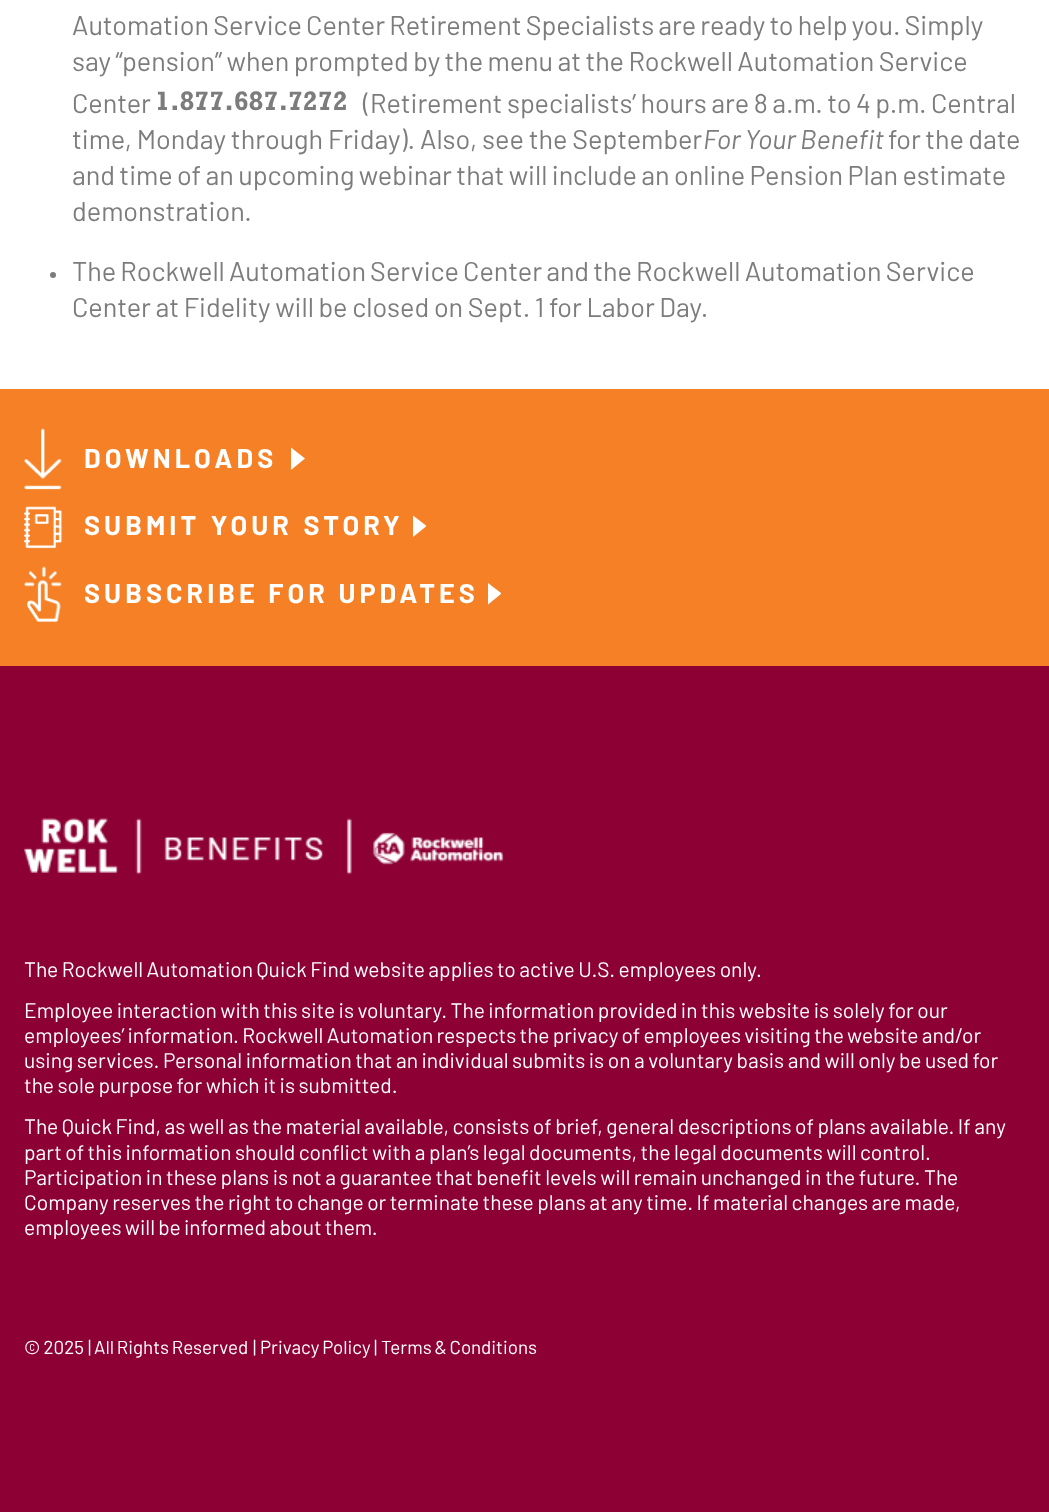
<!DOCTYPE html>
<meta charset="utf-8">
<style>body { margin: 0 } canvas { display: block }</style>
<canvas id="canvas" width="1049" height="1512"></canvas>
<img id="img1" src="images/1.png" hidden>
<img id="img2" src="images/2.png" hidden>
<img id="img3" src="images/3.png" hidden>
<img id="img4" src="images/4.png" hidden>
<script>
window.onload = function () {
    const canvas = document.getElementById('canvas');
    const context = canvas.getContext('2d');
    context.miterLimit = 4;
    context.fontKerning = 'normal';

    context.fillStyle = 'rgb(255, 255, 255)';
    context.fillRect(0, 0, 1049, 1512);
    context.fillStyle = 'rgb(124, 124, 124)';
    context.beginPath();
    context.arc(53, 275, 3, 0, 2 * Math.PI);
    context.fill();
    context.fillStyle = 'rgb(245, 128, 37)';
    context.fillRect(0, 389, 1049, 277);
    context.drawImage(document.getElementById('img1'), 24, 428, 38, 62);
    context.fillStyle = 'rgb(255, 255, 255)';
    context.beginPath();
    context.moveTo(305, 458.5);
    context.lineTo(291, 470);
    context.lineTo(291, 447.5);
    context.closePath();
    context.fill('evenodd');
    context.drawImage(document.getElementById('img2'), 24, 506, 38, 43);
    context.save();
    context.beginPath();
    context.rect(413, 515, 13, 24);
    context.clip();
    context.beginPath();
    context.moveTo(426.5, 526);
    context.lineTo(412.5, 537.5);
    context.lineTo(412.5, 515);
    context.closePath();
    context.fill('evenodd');
    context.restore();
    context.drawImage(document.getElementById('img3'), 24, 566, 38, 56);
    context.save();
    context.beginPath();
    context.rect(488, 582, 13, 24);
    context.clip();
    context.beginPath();
    context.moveTo(501.5, 593.5);
    context.lineTo(487.5, 605);
    context.lineTo(487.5, 582.5);
    context.closePath();
    context.fill('evenodd');
    context.restore();
    context.fillStyle = 'rgb(141, 0, 52)';
    context.fillRect(0, 666, 1049, 846);
    context.drawImage(document.getElementById('img4'), 24, 818, 480, 57);
    context.wordSpacing = '-1.25px';
    context.font = '27px Barlow';
    context.fillStyle = 'rgb(124, 124, 124)';
    context.fillText('Automation Service Center Retirement Specialists are ready to help you. Simply', 72, 35);
    context.wordSpacing = '-1px';
    context.fillText('say “pension” when prompted by the menu at the Rockwell Automation Service', 72, 71);
    context.wordSpacing = '0px';
    context.fillText('Center', 72, 113);
    context.font = 'bold 27px Rockwell';
    context.fillText('1.877.687.7272', 155, 110);
    context.wordSpacing = '-0.9px';
    context.font = '27px Barlow';
    context.fillText('(Retirement specialists’ hours are 8 a.m. to 4 p.m. Central', 363, 113);
    context.wordSpacing = '-0.5px';
    context.fillText('time, Monday through Friday). Also, see the September', 72, 149);
    context.wordSpacing = '-1px';
    context.font = 'italic 27px Barlow';
    context.fillText('For Your Benefit', 703, 149);
    context.font = '27px Barlow';
    context.fillText('for the date', 888, 149);
    context.fillText('and time of an upcoming webinar that will include an online Pension Plan estimate', 72, 185);
    context.wordSpacing = '0px';
    context.fillText('demonstration.', 72, 221);
    context.wordSpacing = '-1.25px';
    context.fillText('The Rockwell Automation Service Center and the Rockwell Automation Service', 72, 281);
    context.wordSpacing = '-0.75px';
    context.fillText('Center at Fidelity will be closed on Sept. 1 for Labor Day.', 72, 317);
    context.letterSpacing = '4.05px';
    context.wordSpacing = '0px';
    context.font = 'bold 27px Barlow';
    context.fillStyle = 'rgb(255, 255, 255)';
    context.fillText('DOWNLOADS', 84, 468);
    context.wordSpacing = '1px';
    context.fillText('SUBMIT YOUR STORY', 84, 535);
    context.wordSpacing = '0px';
    context.fillText('SUBSCRIBE FOR UPDATES', 84, 603);
    context.letterSpacing = '0px';
    context.wordSpacing = '-0.75px';
    context.font = '21px Barlow';
    context.fillText('The Rockwell Automation Quick Find website applies to active U.S. employees only.', 24, 977);
    context.fillText('Employee interaction with this site is voluntary. The information provided in this website is solely for our', 24, 1018);
    context.wordSpacing = '-1px';
    context.fillText('employees’ information. Rockwell Automation respects the privacy of employees visiting the website and/or', 24, 1043);
    context.wordSpacing = '-0.7px';
    context.fillText('using services. Personal information that an individual submits is on a voluntary basis and will only be used for', 24, 1068);
    context.wordSpacing = '-0.75px';
    context.fillText('the sole purpose for which it is submitted.', 24, 1093);
    context.wordSpacing = '-0.7px';
    context.fillText('The Quick Find, as well as the material available, consists of brief, general descriptions of plans available. If any', 24, 1134);
    context.wordSpacing = '-0.75px';
    context.fillText('part of this information should conflict with a plan’s legal documents, the legal documents will control.', 24, 1160);
    context.wordSpacing = '-0.7px';
    context.fillText('Participation in these plans is not a guarantee that benefit levels will remain unchanged in the future. The', 24, 1185);
    context.fillText('Company reserves the right to change or terminate these plans at any time. If material changes are made,', 24, 1210);
    context.wordSpacing = '-1px';
    context.fillText('employees will be informed about them.', 24, 1235);
    context.wordSpacing = '-0.5px';
    context.font = '18.75px Barlow';
    context.fillText('© 2025', 24, 1354);
    context.wordSpacing = '0px';
    context.fillText('|', 88, 1354);
    context.wordSpacing = '-1px';
    context.fillText('All Rights Reserved', 94, 1354);
    context.wordSpacing = '0px';
    context.fillText('|', 253, 1354);
    context.wordSpacing = '-0.75px';
    context.fillText('Privacy Policy', 260, 1354);
    context.wordSpacing = '0px';
    context.fillText('|', 374, 1354);
    context.wordSpacing = '-1px';
    context.fillText('Terms & Conditions', 381, 1354);
};
</script>
